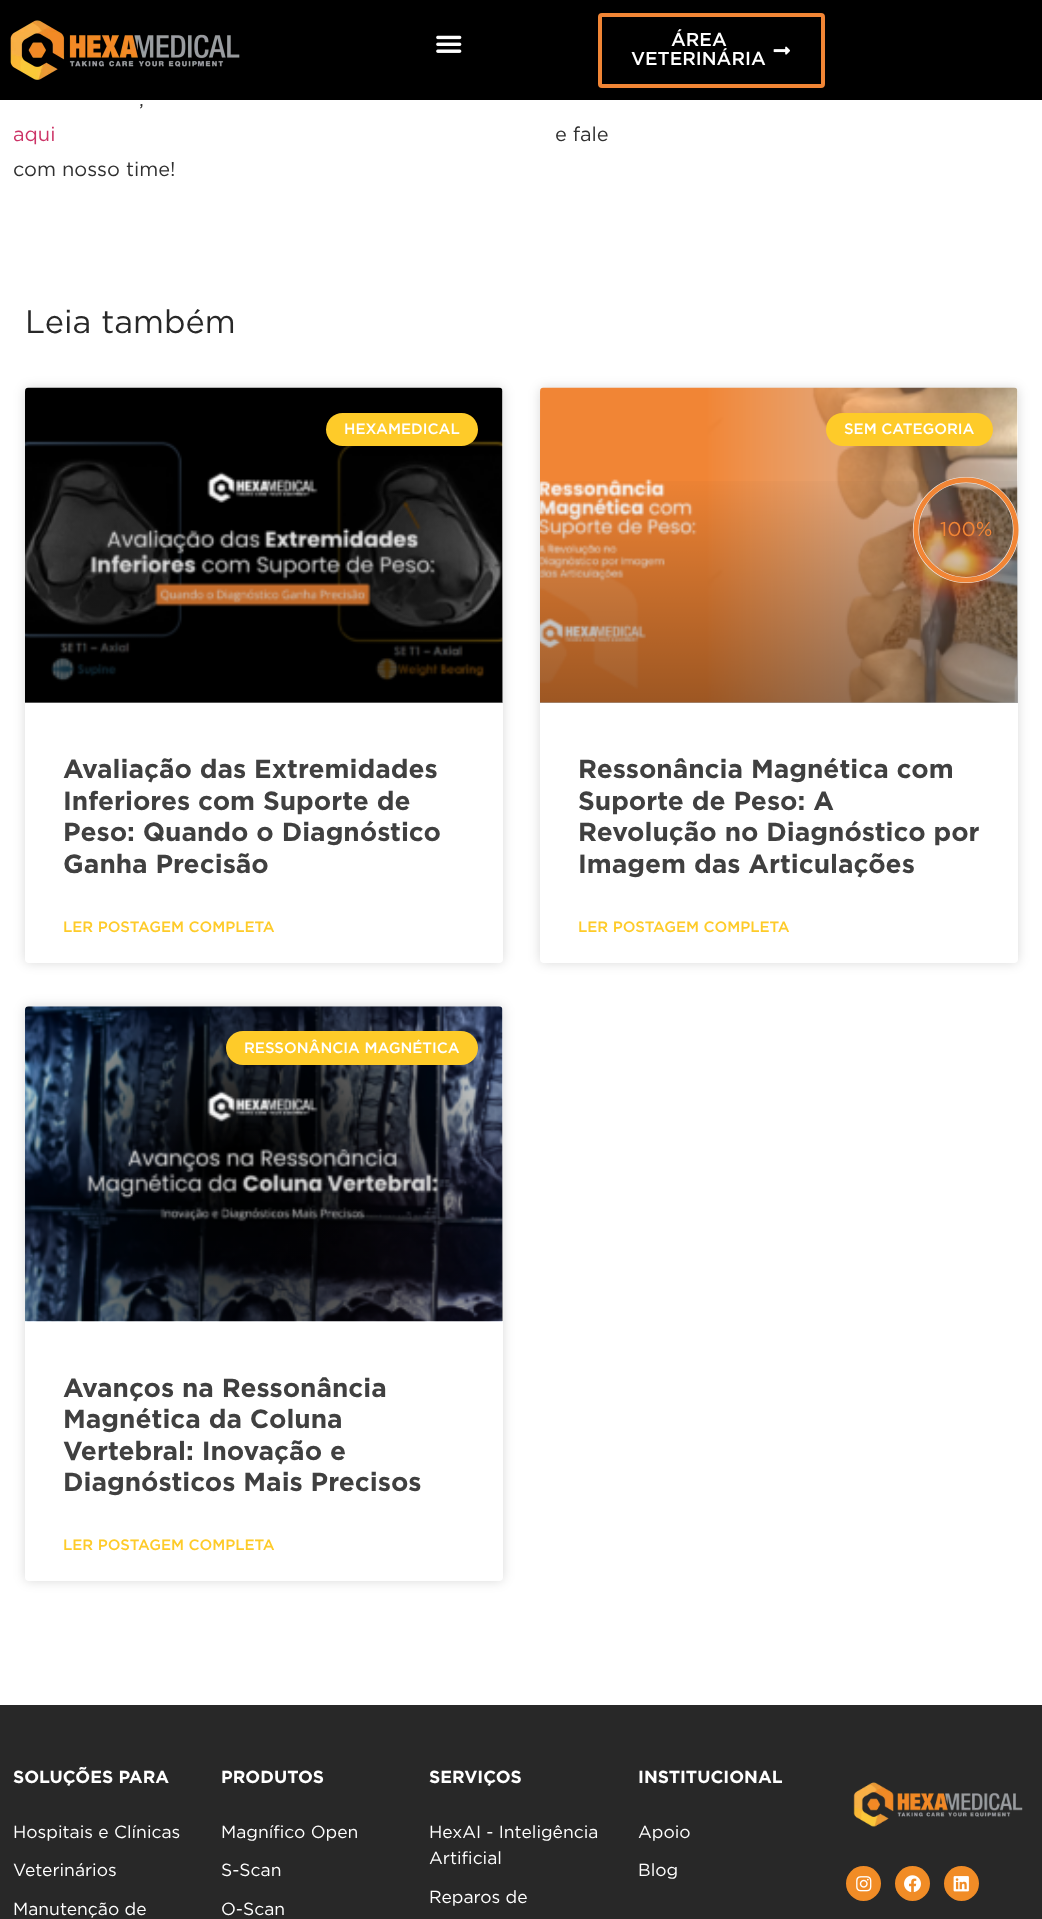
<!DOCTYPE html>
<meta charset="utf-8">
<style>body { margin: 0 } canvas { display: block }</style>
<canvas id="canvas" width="1042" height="1919"></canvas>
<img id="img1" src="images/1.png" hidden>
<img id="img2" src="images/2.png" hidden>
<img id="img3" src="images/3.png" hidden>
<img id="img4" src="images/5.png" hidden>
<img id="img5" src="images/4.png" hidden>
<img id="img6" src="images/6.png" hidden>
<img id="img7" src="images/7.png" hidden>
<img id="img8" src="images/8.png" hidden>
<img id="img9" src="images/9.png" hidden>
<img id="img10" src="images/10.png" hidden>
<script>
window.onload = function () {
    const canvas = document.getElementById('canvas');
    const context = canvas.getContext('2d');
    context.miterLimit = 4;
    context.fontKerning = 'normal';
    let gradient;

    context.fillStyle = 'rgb(255, 255, 255)';
    context.fillRect(0, 0, 1042, 1919);
    context.fillStyle = 'rgb(0, 0, 0)';
    context.fillRect(0, 0, 1042, 100);
    context.drawImage(document.getElementById('img1'), 10, 20, 230, 60);
    context.drawImage(document.getElementById('img2'), 436, 35, 26, 18);
    context.beginPath();
    context.roundRect(600, 15, 223, 71, 2);
    context.strokeStyle = 'rgb(241, 133, 53)';
    context.lineWidth = 4;
    context.stroke();
    context.drawImage(document.getElementById('img3'), 773, 46, 17, 9);
    context.fillStyle = 'rgba(0, 0, 0, 0.15)';
    context.filter = 'blur(6px)';
    context.beginPath();
    context.roundRect(540, 388, 478, 575, 4);
    context.fill();
    context.filter = 'none';
    context.fillStyle = 'rgb(255, 255, 255)';
    context.beginPath();
    context.roundRect(540, 388, 478, 575, 4);
    context.fill();
    context.drawImage(document.getElementById('img4'), 540, 387, 478, 316);
    gradient = context.createLinearGradient(779, 703, 779, 388);
    gradient.addColorStop(0, 'rgba(0, 0, 0, 0.35)');
    gradient.addColorStop(0.75, 'rgba(0, 0, 0, 0)');
    context.fillStyle = gradient;
    context.fillRect(540, 481, 478, 222);
    context.beginPath();
    context.arc(966, 530, 50, 0, 2 * Math.PI);
    context.strokeStyle = 'rgb(238, 238, 238)';
    context.lineWidth = 6.2;
    context.stroke();
    context.beginPath();
    context.moveTo(916, 530);
    context.bezierCurveTo(916, 502.5, 938.5, 480, 966, 480);
    context.bezierCurveTo(994, 480, 1016, 502.5, 1016, 530);
    context.bezierCurveTo(1016, 557.5, 994, 580, 966, 580);
    context.bezierCurveTo(938.5, 580, 916, 557.5, 916, 530);
    context.strokeStyle = 'rgb(241, 133, 53)';
    context.lineWidth = 5;
    context.stroke();
    context.fillStyle = 'rgba(0, 0, 0, 0.15)';
    context.filter = 'blur(6px)';
    context.beginPath();
    context.roundRect(25, 388, 478, 575, 4);
    context.fill();
    context.filter = 'none';
    context.fillStyle = 'rgb(255, 255, 255)';
    context.beginPath();
    context.roundRect(25, 388, 478, 575, 4);
    context.fill();
    context.drawImage(document.getElementById('img5'), 25, 387, 478, 316);
    gradient = context.createLinearGradient(264, 703, 264, 388);
    gradient.addColorStop(0, 'rgba(0, 0, 0, 0.35)');
    gradient.addColorStop(0.75, 'rgba(0, 0, 0, 0)');
    context.fillStyle = gradient;
    context.fillRect(25, 481, 478, 222);
    context.fillStyle = 'rgb(254, 203, 41)';
    context.beginPath();
    context.roundRect(326, 413, 152, 33, 16.5);
    context.fill();
    context.beginPath();
    context.roundRect(826, 413, 167, 33, 16.5);
    context.fill();
    context.fillStyle = 'rgba(0, 0, 0, 0.15)';
    context.filter = 'blur(6px)';
    context.beginPath();
    context.roundRect(25, 1006, 478, 575, 4);
    context.fill();
    context.filter = 'none';
    context.fillStyle = 'rgb(255, 255, 255)';
    context.beginPath();
    context.roundRect(25, 1006, 478, 575, 4);
    context.fill();
    context.drawImage(document.getElementById('img6'), 25, 1006, 478, 316);
    gradient = context.createLinearGradient(264, 1321, 264, 1006);
    gradient.addColorStop(0, 'rgba(0, 0, 0, 0.35)');
    gradient.addColorStop(0.75, 'rgba(0, 0, 0, 0)');
    context.fillStyle = gradient;
    context.fillRect(25, 1099, 478, 222);
    context.fillStyle = 'rgb(254, 203, 41)';
    context.beginPath();
    context.roundRect(226, 1031, 252, 34, 17);
    context.fill();
    context.fillStyle = 'rgb(40, 40, 40)';
    context.fillRect(0, 1705, 1042, 214);
    context.drawImage(document.getElementById('img7'), 853, 1782, 170, 45);
    context.fillStyle = 'rgb(241, 140, 38)';
    context.beginPath();
    context.arc(863.5, 1883.5, 17.5, 0, 2 * Math.PI);
    context.fill();
    context.drawImage(document.getElementById('img8'), 856, 1876, 16, 16);
    context.beginPath();
    context.arc(912.5, 1883.5, 17.5, 0, 2 * Math.PI);
    context.fill();
    context.drawImage(document.getElementById('img9'), 904, 1875, 17, 17);
    context.beginPath();
    context.arc(961.5, 1883.5, 17.5, 0, 2 * Math.PI);
    context.fill();
    context.drawImage(document.getElementById('img10'), 953, 1876, 16, 16);
    context.font = '500 18.75px Gotham';
    context.fillStyle = 'rgb(255, 255, 255)';
    context.fillText('ÁREA', 671, 46);
    context.fillText('VETERINÁRIA', 631, 65);
    context.font = '20px Gotham';
    context.fillStyle = 'rgb(48, 48, 48)';
    context.fillText(',', 139, 106);
    context.fillStyle = 'rgb(204, 51, 102)';
    context.fillText('aqui', 13, 141);
    context.fillStyle = 'rgb(48, 48, 48)';
    context.fillText('e fale', 555, 141);
    context.fillText('com nosso time!', 13, 176);
    context.fillStyle = 'rgb(241, 133, 53)';
    context.fillText('100%', 940, 536);
    context.font = '32.5px Gotham';
    context.fillStyle = 'rgb(40, 40, 40)';
    context.fillText('Leia também', 25, 333);
    context.font = '500 15px Gotham';
    context.fillStyle = 'rgb(255, 255, 255)';
    context.fillText('HEXAMEDICAL', 344, 434);
    context.font = 'bold 26.25px Gotham';
    context.fillStyle = 'rgb(64, 64, 64)';
    context.fillText('Avaliação das Extremidades', 63, 778);
    context.fillText('Inferiores com Suporte de', 63, 810);
    context.fillText('Peso: Quando o Diagnóstico', 63, 841);
    context.fillText('Ganha Precisão', 63, 873);
    context.font = '500 15px Gotham';
    context.fillStyle = 'rgb(254, 203, 41)';
    context.fillText('LER POSTAGEM COMPLETA', 63, 932);
    context.fillStyle = 'rgb(255, 255, 255)';
    context.fillText('SEM CATEGORIA', 844, 434);
    context.font = 'bold 26.25px Gotham';
    context.fillStyle = 'rgb(64, 64, 64)';
    context.fillText('Ressonância Magnética com', 578, 778);
    context.fillText('Suporte de Peso: A', 578, 810);
    context.fillText('Revolução no Diagnóstico por', 578, 841);
    context.fillText('Imagem das Articulações', 578, 873);
    context.font = '500 15px Gotham';
    context.fillStyle = 'rgb(254, 203, 41)';
    context.fillText('LER POSTAGEM COMPLETA', 578, 932);
    context.fillStyle = 'rgb(255, 255, 255)';
    context.fillText('RESSONÂNCIA MAGNÉTICA', 244, 1053);
    context.font = 'bold 26.25px Gotham';
    context.fillStyle = 'rgb(64, 64, 64)';
    context.fillText('Avanços na Ressonância', 63, 1397);
    context.fillText('Magnética da Coluna', 63, 1428);
    context.fillText('Vertebral: Inovação e', 63, 1460);
    context.fillText('Diagnósticos Mais Precisos', 63, 1491);
    context.font = '500 15px Gotham';
    context.fillStyle = 'rgb(254, 203, 41)';
    context.fillText('LER POSTAGEM COMPLETA', 63, 1550);
    context.font = 'bold 17.5px Gotham';
    context.fillStyle = 'rgb(255, 255, 255)';
    context.fillText('SOLUÇÕES PARA', 13, 1783);
    context.font = '17.5px Gotham';
    context.fillText('Hospitais e Clínicas', 13, 1838);
    context.fillText('Veterinários', 13, 1876);
    context.fillText('Manutenção de', 13, 1915);
    context.font = 'bold 17.5px Gotham';
    context.fillText('PRODUTOS', 221, 1783);
    context.font = '17.5px Gotham';
    context.fillText('Magnífico Open', 221, 1838);
    context.fillText('S-Scan', 221, 1876);
    context.fillText('O-Scan', 221, 1915);
    context.font = 'bold 17.5px Gotham';
    context.fillText('SERVIÇOS', 429, 1783);
    context.font = '17.5px Gotham';
    context.fillText('HexAI - Inteligência', 429, 1838);
    context.fillText('Artificial', 429, 1864);
    context.fillText('Reparos de', 429, 1903);
    context.font = 'bold 17.5px Gotham';
    context.fillText('INSTITUCIONAL', 638, 1783);
    context.font = '17.5px Gotham';
    context.fillText('Apoio', 638, 1838);
    context.fillText('Blog', 638, 1876);
};
</script>
